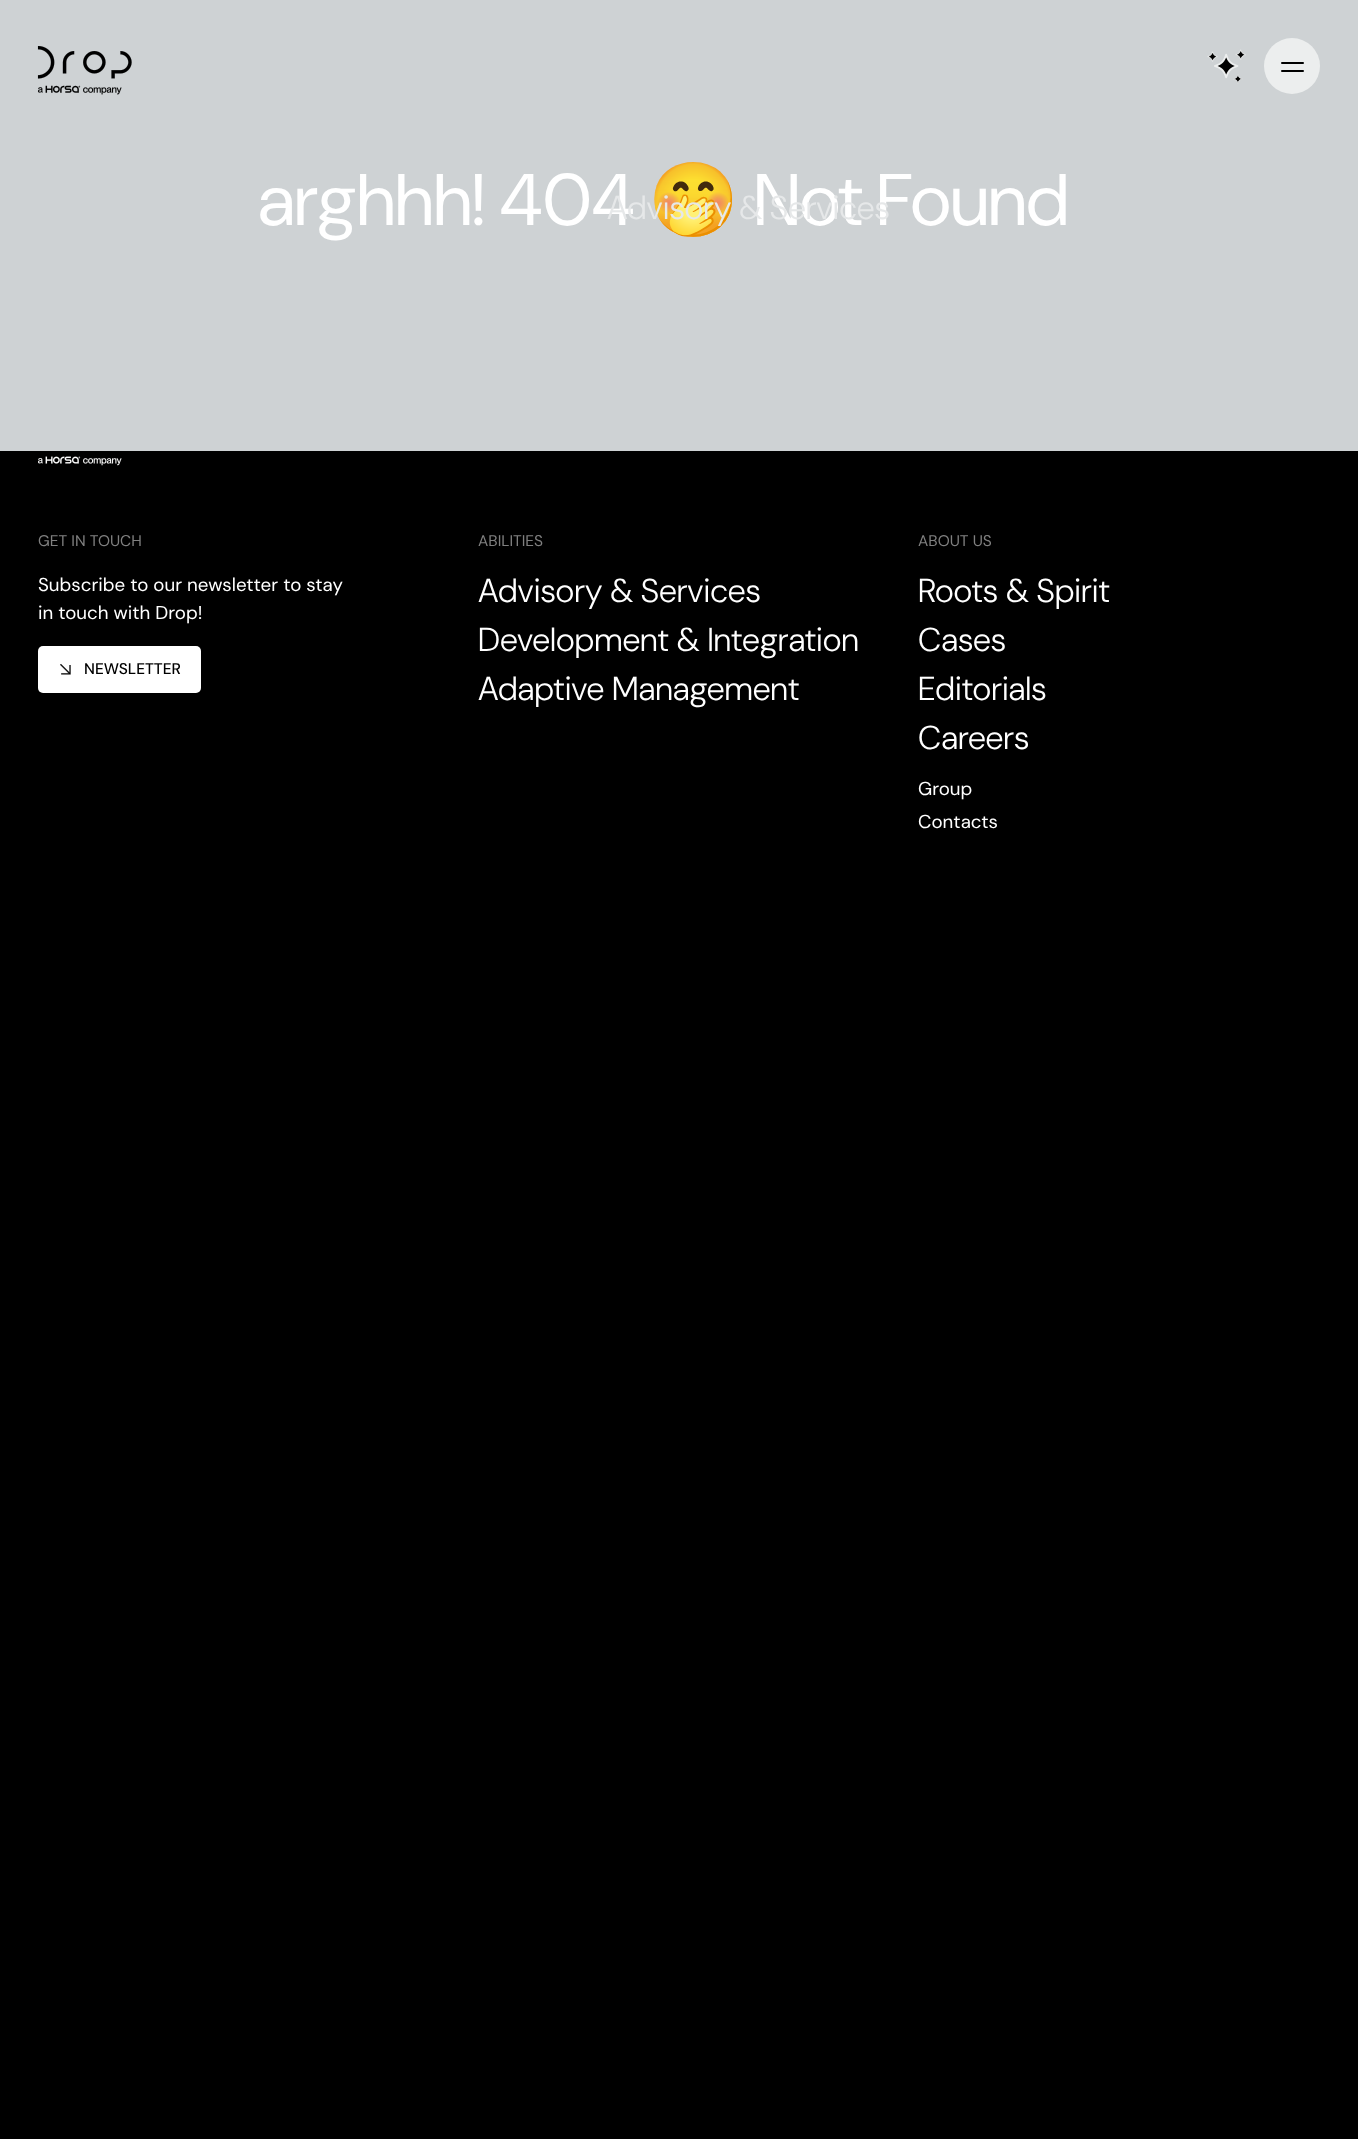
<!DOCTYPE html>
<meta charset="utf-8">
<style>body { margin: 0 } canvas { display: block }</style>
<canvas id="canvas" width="1358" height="2139"></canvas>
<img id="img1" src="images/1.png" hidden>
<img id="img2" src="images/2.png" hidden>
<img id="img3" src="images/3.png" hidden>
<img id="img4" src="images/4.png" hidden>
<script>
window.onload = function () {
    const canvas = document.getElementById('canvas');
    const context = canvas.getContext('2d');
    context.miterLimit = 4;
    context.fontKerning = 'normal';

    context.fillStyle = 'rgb(206, 210, 212)';
    context.fillRect(0, 0, 1358, 2139);
    context.drawImage(document.getElementById('img1'), 37, 46, 95, 49);
    context.fillStyle = 'rgb(0, 0, 0)';
    context.fillRect(0, 451, 1358, 1688);
    context.drawImage(document.getElementById('img2'), 38, 456, 84, 10);
    context.fillStyle = 'rgb(255, 255, 255)';
    context.beginPath();
    context.roundRect(38, 646, 163, 47, 5);
    context.fill();
    context.drawImage(document.getElementById('img3'), 60, 664, 11, 11);
    context.drawImage(document.getElementById('img4'), 1207, 49, 39, 35);
    context.fillStyle = 'rgb(236, 238, 238)';
    context.beginPath();
    context.arc(1292, 66, 28, 0, 2 * Math.PI);
    context.fill();
    context.fillStyle = 'rgb(0, 0, 0)';
    context.beginPath();
    context.roundRect(1281, 62, 23, 2, 1);
    context.fill();
    context.beginPath();
    context.roundRect(1281, 70, 23, 2, 1);
    context.fill();
    context.font = '73px DM Sans';
    context.fillStyle = 'rgb(255, 255, 255)';
    context.fillText('arghhh! 404', 258, 225);
    context.save();
    context.beginPath();
    context.rect(258, 160, 810, 83);
    context.clip();
    context.font = '73px Noto Color Emoji';
    context.fillText('🤭', 648, 225);
    context.restore();
    context.fillText('Not Found', 754, 225);
    context.font = '15.5px "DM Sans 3"';
    context.fillStyle = 'rgb(128, 128, 128)';
    context.fillText('GET IN TOUCH', 38, 546);
    context.font = '18.75px "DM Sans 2"';
    context.fillStyle = 'rgb(255, 255, 255)';
    context.fillText('Subscribe to our newsletter to stay', 38, 591);
    context.fillText('in touch with Drop!', 38, 619);
    context.font = '500 15.5px DM Sans';
    context.fillStyle = 'rgb(0, 0, 0)';
    context.fillText('NEWSLETTER', 84, 674);
    context.font = '15.5px "DM Sans 3"';
    context.fillStyle = 'rgb(128, 128, 128)';
    context.fillText('ABILITIES', 478, 546);
    context.font = '300 33.1px DM Sans';
    context.fillStyle = 'rgb(255, 255, 255)';
    context.fillText('Advisory & Services', 478, 602);
    context.fillText('Development & Integration', 478, 651);
    context.fillText('Adaptive Management', 478, 700);
    context.font = '15.5px "DM Sans 3"';
    context.fillStyle = 'rgb(128, 128, 128)';
    context.fillText('ABOUT US', 918, 546);
    context.font = '300 33.1px DM Sans';
    context.fillStyle = 'rgb(255, 255, 255)';
    context.fillText('Roots & Spirit', 918, 602);
    context.fillText('Cases', 918, 651);
    context.fillText('Editorials', 918, 700);
    context.fillText('Careers', 918, 749);
    context.font = '18.75px "DM Sans 2"';
    context.fillText('Group', 918, 795);
    context.fillText('Contacts', 918, 828);
    context.font = '300 33.1px DM Sans';
    context.fillStyle = 'rgb(230, 232, 233)';
    context.fillText('Advisory & Services', 607, 219);
};
</script>
